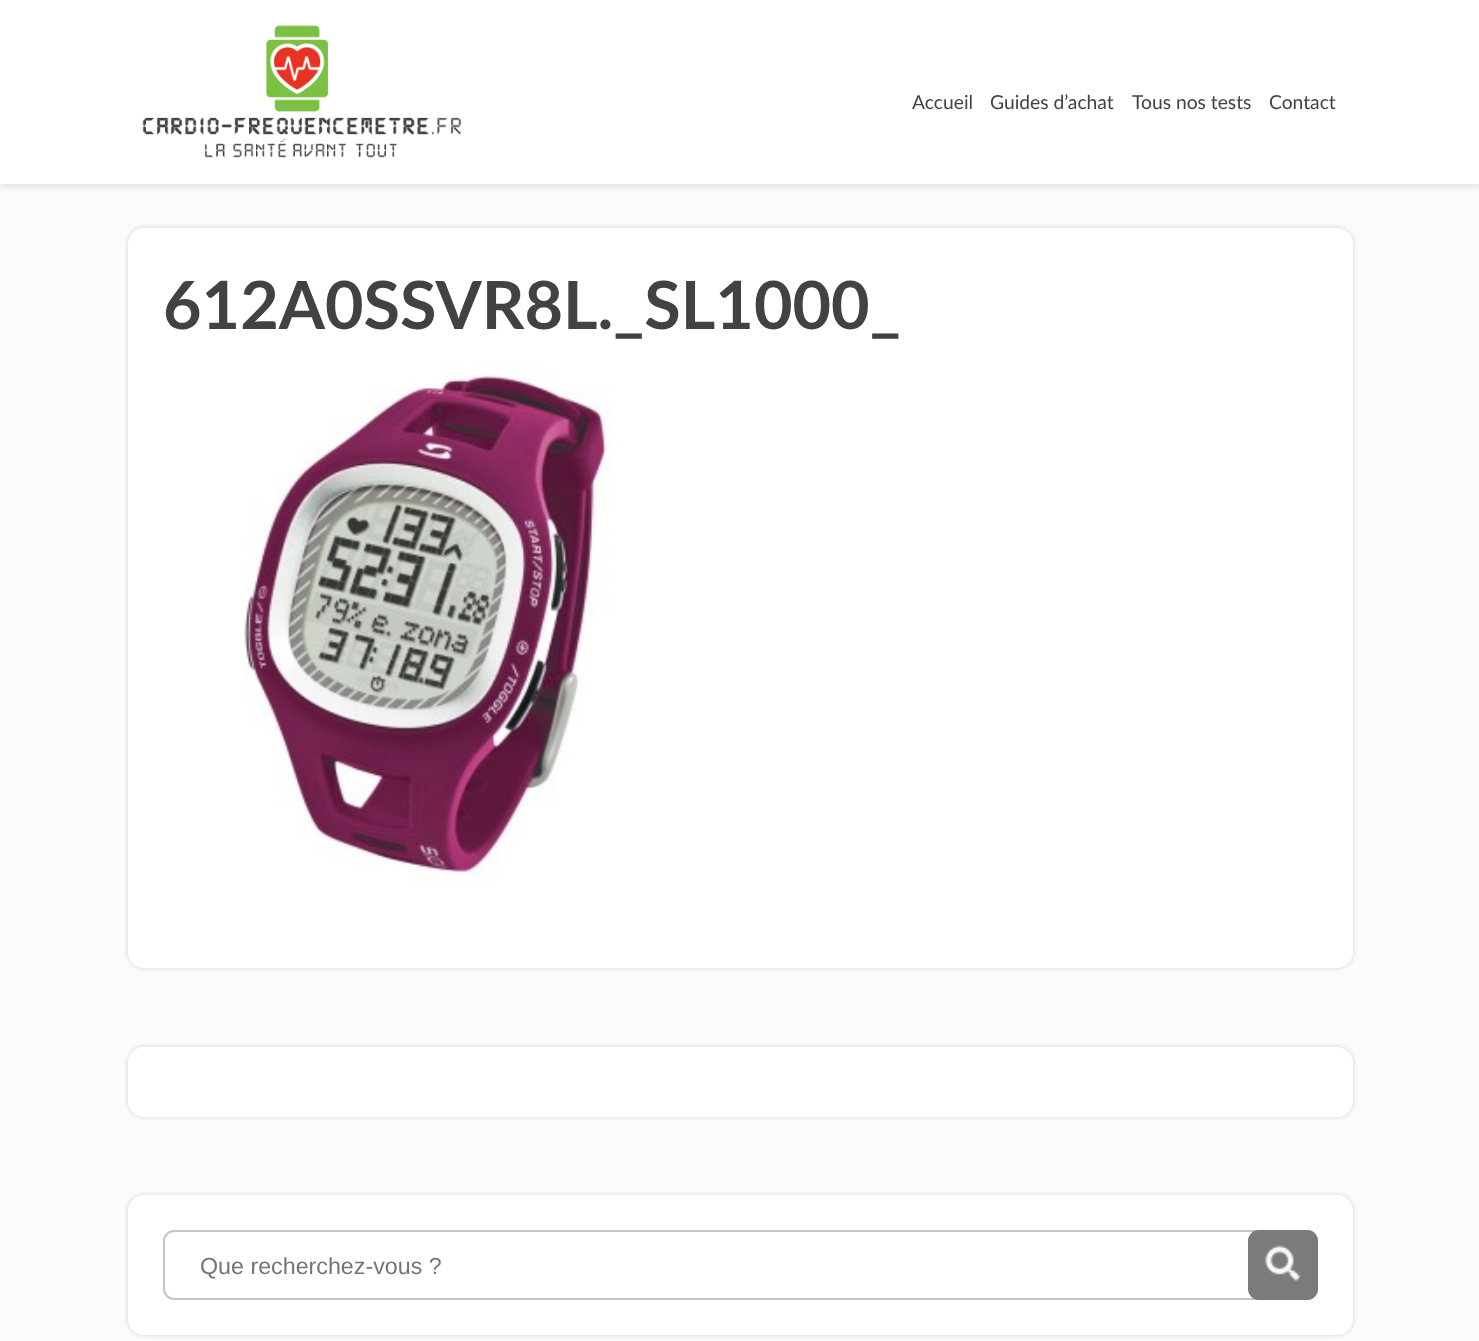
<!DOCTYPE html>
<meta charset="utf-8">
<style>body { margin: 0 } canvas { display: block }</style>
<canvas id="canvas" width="1479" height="1341"></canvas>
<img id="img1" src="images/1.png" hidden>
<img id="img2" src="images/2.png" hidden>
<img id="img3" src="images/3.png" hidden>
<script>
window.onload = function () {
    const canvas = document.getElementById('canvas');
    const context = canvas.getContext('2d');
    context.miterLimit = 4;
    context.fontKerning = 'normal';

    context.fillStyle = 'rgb(251, 251, 251)';
    context.fillRect(0, 0, 1479, 1341);
    context.fillStyle = 'rgb(223, 221, 221)';
    context.filter = 'blur(3.5px)';
    context.beginPath();
    context.rect(0, 2, 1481, 184);
    context.fill();
    context.filter = 'none';
    context.fillStyle = 'rgb(255, 255, 255)';
    context.fillRect(0, 0, 1479, 184);
    context.drawImage(document.getElementById('img1'), 142, 25, 320, 133);
    context.fillStyle = 'rgba(1, 1, 1, 0.16)';
    context.filter = 'blur(2.5px)';
    context.beginPath();
    context.roundRect(128, 228, 1225, 740, 16);
    context.fill();
    context.filter = 'none';
    context.fillStyle = 'rgb(255, 255, 255)';
    context.beginPath();
    context.roundRect(128, 228, 1225, 740, 16);
    context.fill();
    context.drawImage(document.getElementById('img2'), 244, 361, 367, 525);
    context.fillStyle = 'rgba(1, 1, 1, 0.16)';
    context.filter = 'blur(2.5px)';
    context.beginPath();
    context.roundRect(128, 1047, 1225, 70, 16);
    context.fill();
    context.filter = 'none';
    context.fillStyle = 'rgb(255, 255, 255)';
    context.beginPath();
    context.roundRect(128, 1047, 1225, 70, 16);
    context.fill();
    context.fillStyle = 'rgba(1, 1, 1, 0.16)';
    context.filter = 'blur(2.5px)';
    context.beginPath();
    context.roundRect(128, 1195, 1225, 140, 16);
    context.fill();
    context.filter = 'none';
    context.fillStyle = 'rgb(255, 255, 255)';
    context.beginPath();
    context.roundRect(128, 1195, 1225, 140, 16);
    context.fill();
    context.beginPath();
    context.roundRect(164, 1231, 1153, 68, 10);
    context.strokeStyle = 'rgb(198, 198, 198)';
    context.lineWidth = 2;
    context.stroke();
    context.fillStyle = 'rgb(123, 123, 123)';
    context.beginPath();
    context.roundRect(1248, 1230, 70, 70, 11);
    context.fill();
    context.drawImage(document.getElementById('img3'), 1264, 1245, 37, 37);
    context.font = '19.25px Lato';
    context.fillStyle = 'rgb(66, 66, 66)';
    context.fillText('Accueil', 912, 109);
    context.fillText('Guides d’achat', 990, 109);
    context.fillText('Tous nos tests', 1132, 109);
    context.fillText('Contact', 1269, 109);
    context.font = 'bold 66.5px Lato';
    context.fillText('612A0SSVR8L._SL1000_', 163, 329);
    context.font = '23.25px Liberation Sans';
    context.fillStyle = 'rgb(117, 117, 117)';
    context.fillText('Que recherchez-vous ?', 200, 1274);
};
</script>
